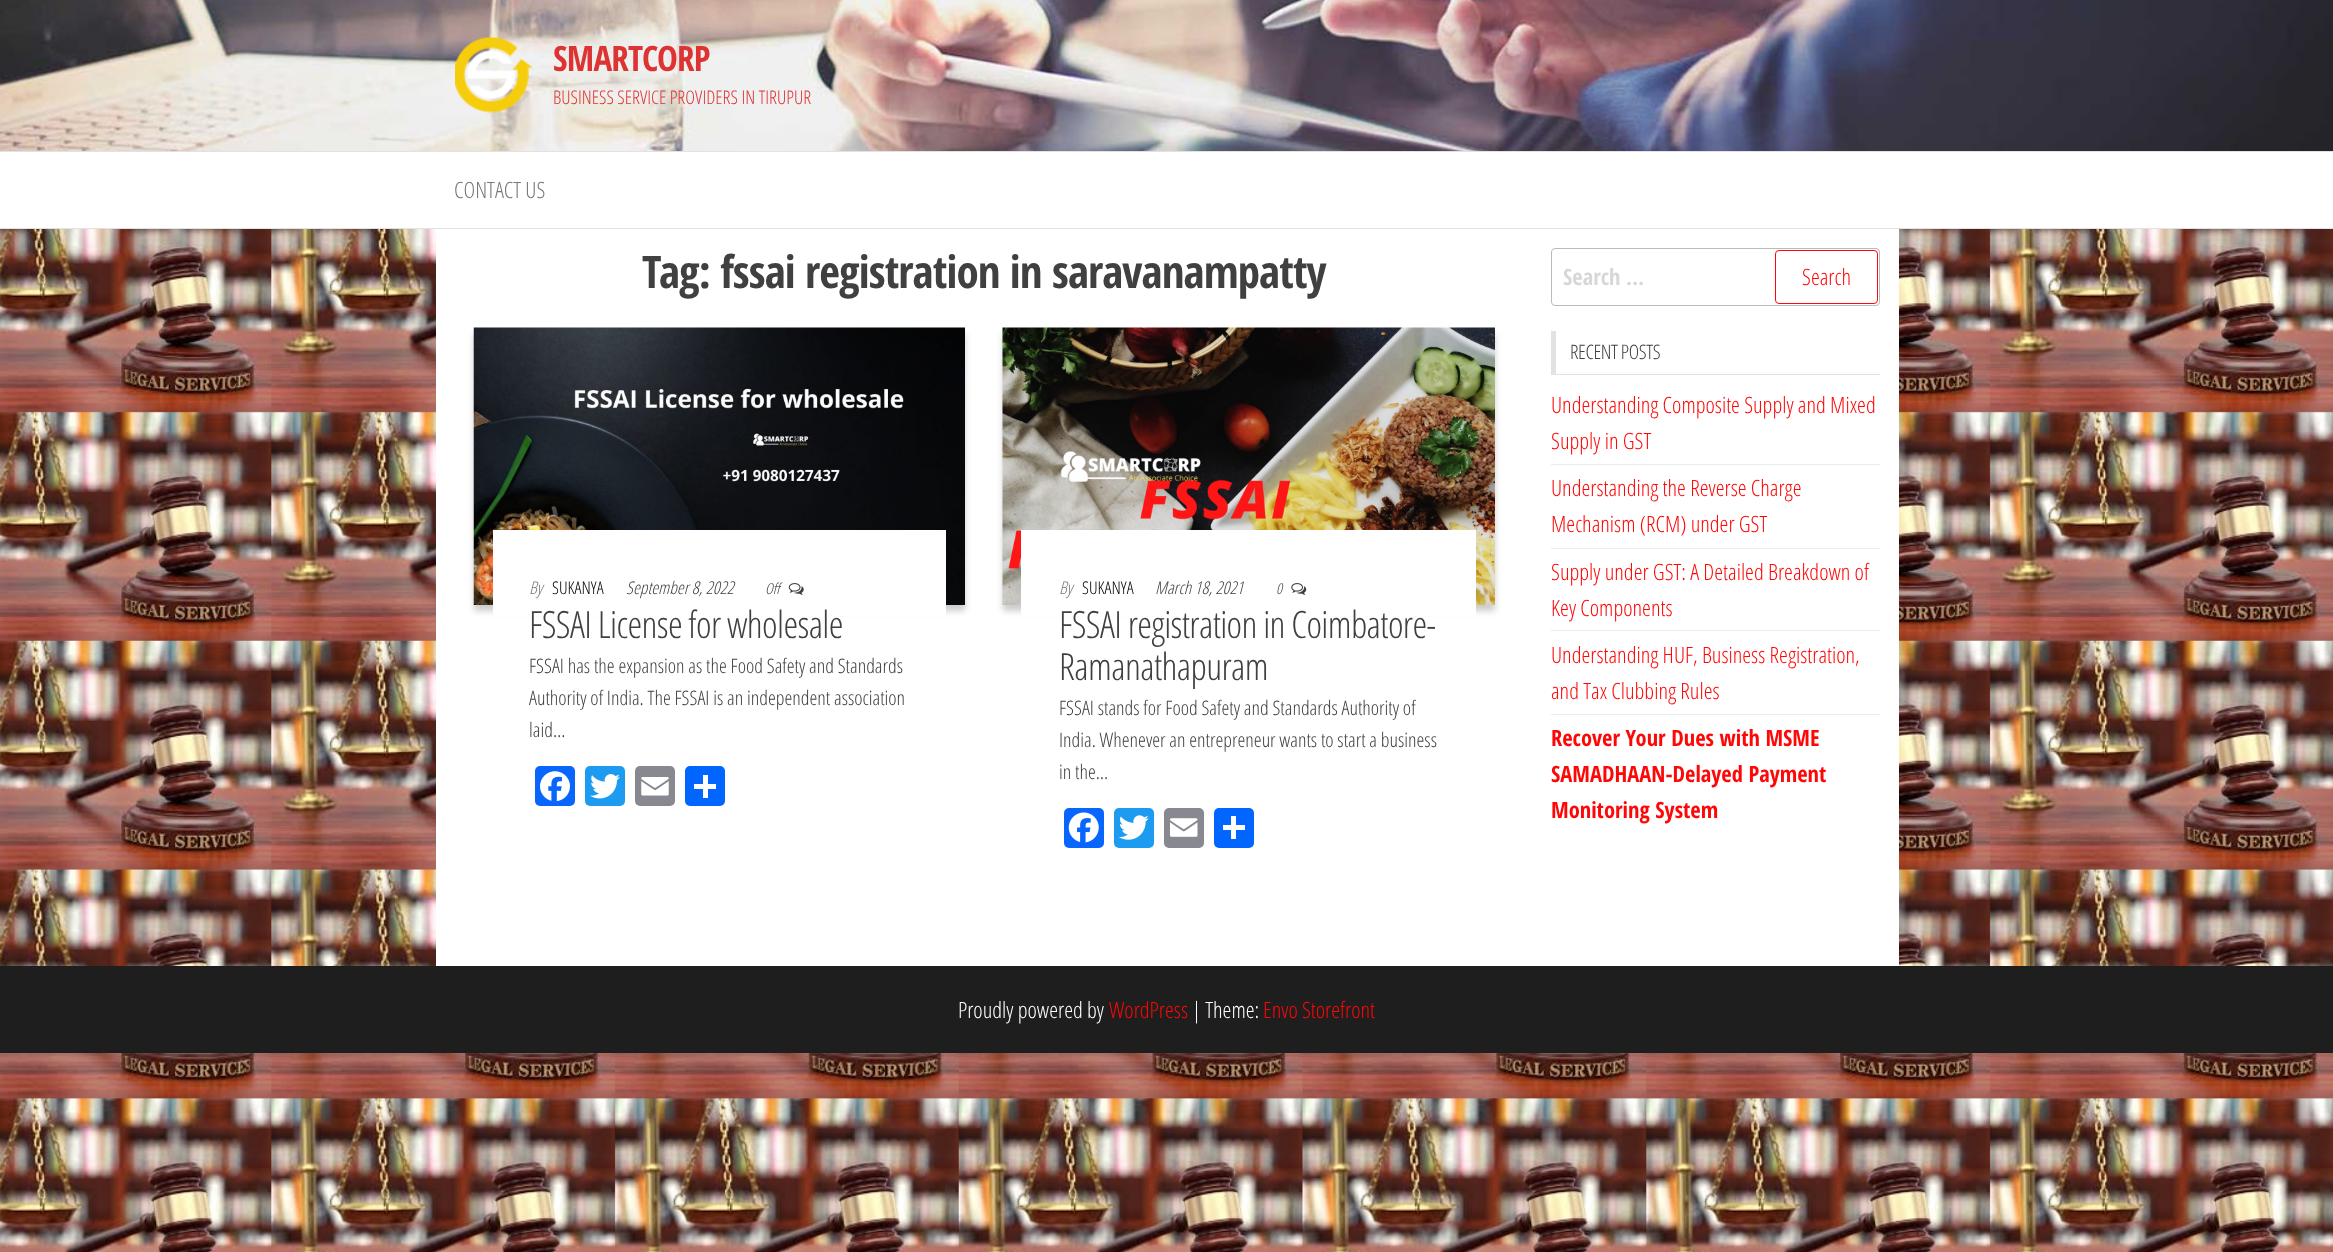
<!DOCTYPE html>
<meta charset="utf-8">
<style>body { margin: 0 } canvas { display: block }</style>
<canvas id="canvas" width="2333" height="1252"></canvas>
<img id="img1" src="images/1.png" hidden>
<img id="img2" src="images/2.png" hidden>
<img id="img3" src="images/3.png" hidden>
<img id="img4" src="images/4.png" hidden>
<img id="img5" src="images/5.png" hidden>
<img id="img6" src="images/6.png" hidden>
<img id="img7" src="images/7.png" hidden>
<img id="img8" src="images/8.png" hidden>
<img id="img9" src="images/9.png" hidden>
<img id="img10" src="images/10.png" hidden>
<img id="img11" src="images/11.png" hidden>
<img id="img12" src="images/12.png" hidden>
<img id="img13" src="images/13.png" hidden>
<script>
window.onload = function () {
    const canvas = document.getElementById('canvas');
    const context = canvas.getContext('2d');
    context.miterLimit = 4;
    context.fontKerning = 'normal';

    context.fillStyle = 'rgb(255, 255, 255)';
    context.fillRect(0, 0, 2333, 1252);
    context.drawImage(document.getElementById('img1'), 0, 229, 2333, 1023);
    context.drawImage(document.getElementById('img2'), 0, 0, 2333, 151);
    context.drawImage(document.getElementById('img3'), 455, 37, 78, 76);
    context.fillStyle = 'rgb(226, 226, 226)';
    context.fillRect(0, 151, 2333, 1);
    context.fillRect(0, 228, 2333, 1);
    context.fillStyle = 'rgb(255, 255, 255)';
    context.fillRect(436, 229, 1463, 737);
    context.fillStyle = 'rgba(0, 0, 0, 0.2)';
    context.filter = 'blur(3px)';
    context.beginPath();
    context.rect(474, 334, 491, 277);
    context.fill();
    context.filter = 'none';
    context.drawImage(document.getElementById('img4'), 473, 327, 492, 278);
    context.fillStyle = 'rgb(255, 255, 255)';
    context.fillRect(493, 530, 453, 86);
    context.drawImage(document.getElementById('img5'), 788, 583, 16, 12);
    context.fillStyle = 'rgb(8, 102, 255)';
    context.beginPath();
    context.roundRect(535, 766, 40, 40, 5);
    context.fill();
    context.drawImage(document.getElementById('img6'), 540, 771, 30, 31);
    context.fillStyle = 'rgb(29, 155, 240)';
    context.beginPath();
    context.roundRect(585, 766, 40, 40, 5);
    context.fill();
    context.drawImage(document.getElementById('img7'), 590, 774, 30, 25);
    context.fillStyle = 'rgb(136, 137, 144)';
    context.beginPath();
    context.roundRect(635, 766, 40, 40, 5);
    context.fill();
    context.drawImage(document.getElementById('img8'), 641, 777, 28, 19);
    context.fillStyle = 'rgb(1, 102, 255)';
    context.beginPath();
    context.roundRect(685, 766, 40, 40, 5);
    context.fill();
    context.fillStyle = 'rgb(255, 255, 255)';
    context.fillRect(703, 775, 5, 23);
    context.fillRect(694, 784, 22, 5);
    context.fillStyle = 'rgba(0, 0, 0, 0.2)';
    context.filter = 'blur(3px)';
    context.beginPath();
    context.rect(1003, 334, 492, 277);
    context.fill();
    context.filter = 'none';
    context.drawImage(document.getElementById('img9'), 1002, 327, 493, 278);
    context.fillStyle = 'rgb(255, 255, 255)';
    context.fillRect(1021, 530, 455, 86);
    context.drawImage(document.getElementById('img10'), 1291, 583, 16, 12);
    context.fillStyle = 'rgb(8, 102, 255)';
    context.beginPath();
    context.roundRect(1064, 808, 40, 40, 5);
    context.fill();
    context.drawImage(document.getElementById('img11'), 1068, 812, 31, 31);
    context.fillStyle = 'rgb(29, 155, 240)';
    context.beginPath();
    context.roundRect(1114, 808, 40, 40, 5);
    context.fill();
    context.drawImage(document.getElementById('img12'), 1119, 815, 30, 25);
    context.fillStyle = 'rgb(136, 137, 144)';
    context.beginPath();
    context.roundRect(1164, 808, 40, 40, 5);
    context.fill();
    context.drawImage(document.getElementById('img13'), 1170, 818, 28, 19);
    context.fillStyle = 'rgb(1, 102, 255)';
    context.beginPath();
    context.roundRect(1214, 808, 40, 40, 5);
    context.fill();
    context.fillStyle = 'rgb(255, 255, 255)';
    context.fillRect(1231, 816, 5, 23);
    context.fillRect(1223, 825, 22, 5);
    context.beginPath();
    context.roundRect(1551.5, 248.5, 328, 57, 3.5);
    context.strokeStyle = 'rgb(187, 187, 187)';
    context.stroke();
    context.beginPath();
    context.roundRect(1775.5, 250.5, 102, 53, 3.5);
    context.strokeStyle = 'rgb(255, 7, 7)';
    context.stroke();
    context.fillStyle = 'rgb(226, 226, 226)';
    context.fillRect(1551, 374, 329, 1);
    context.fillRect(1551, 331, 5, 43);
    context.fillStyle = 'rgb(235, 235, 235)';
    context.fillRect(1551, 464, 329, 1);
    context.fillRect(1551, 548, 329, 1);
    context.fillRect(1551, 630, 329, 1);
    context.fillRect(1551, 714, 329, 1);
    context.fillStyle = 'rgb(30, 30, 30)';
    context.fillRect(0, 966, 2333, 87);
    context.letterSpacing = '-0.75px';
    context.font = 'bold 35px Open Sans Condensed';
    context.fillStyle = 'rgb(221, 51, 51)';
    context.fillText('SMARTCORP', 553, 71);
    context.letterSpacing = '0px';
    context.font = '300 18.75px Open Sans Condensed';
    context.fillText('BUSINESS SERVICE PROVIDERS IN TIRUPUR', 553, 104);
    context.font = '300 22.5px Open Sans Condensed';
    context.fillStyle = 'rgb(119, 119, 119)';
    context.fillText('CONTACT US', 454, 198);
    context.letterSpacing = '-0.9px';
    context.font = 'bold 45px Open Sans Condensed';
    context.fillStyle = 'rgb(64, 64, 64)';
    context.fillText('Tag: fssai registration in saravanampatty', 642, 288);
    context.letterSpacing = '0px';
    context.font = 'italic 300 17.5px Open Sans Condensed';
    context.fillStyle = 'rgb(119, 119, 119)';
    context.fillText('By', 529, 594);
    context.font = '300 17.5px Open Sans Condensed';
    context.fillStyle = 'rgb(0, 0, 0)';
    context.fillText('SUKANYA', 552, 594);
    context.font = 'italic 300 17.5px Open Sans Condensed';
    context.fillStyle = 'rgb(64, 64, 64)';
    context.fillText('September 8, 2022', 626, 594);
    context.font = 'italic 300 15px Open Sans Condensed';
    context.fillText('Off', 765, 594);
    context.letterSpacing = '-0.65px';
    context.font = '300 37.5px Open Sans Condensed';
    context.fillText('FSSAI License for wholesale', 529, 638);
    context.letterSpacing = '0px';
    context.font = '300 20px Open Sans Condensed';
    context.fillText('FSSAI has the expansion as the Food Safety and Standards', 529, 673);
    context.fillText('Authority of India. The FSSAI is an independent association', 529, 705);
    context.fillText('laid…', 529, 737);
    context.font = 'italic 300 17.5px Open Sans Condensed';
    context.fillStyle = 'rgb(119, 119, 119)';
    context.fillText('By', 1059, 594);
    context.font = '300 17.5px Open Sans Condensed';
    context.fillStyle = 'rgb(0, 0, 0)';
    context.fillText('SUKANYA', 1082, 594);
    context.font = 'italic 300 17.5px Open Sans Condensed';
    context.fillStyle = 'rgb(64, 64, 64)';
    context.fillText('March 18, 2021', 1155, 594);
    context.font = 'italic 300 15px Open Sans Condensed';
    context.fillText('0', 1276, 594);
    context.letterSpacing = '-0.65px';
    context.font = '300 37.5px Open Sans Condensed';
    context.fillText('FSSAI registration in Coimbatore-', 1059, 638);
    context.fillText('Ramanathapuram', 1059, 680);
    context.letterSpacing = '0px';
    context.font = '300 20px Open Sans Condensed';
    context.fillText('FSSAI stands for Food Safety and Standards Authority of', 1059, 715);
    context.fillText('India. Whenever an entrepreneur wants to start a business', 1059, 747);
    context.fillText('in the…', 1059, 779);
    context.font = 'bold 22.5px Open Sans Condensed';
    context.fillStyle = 'rgb(215, 215, 215)';
    context.fillText('Search …', 1563, 285);
    context.font = '300 22.5px Open Sans Condensed';
    context.fillStyle = 'rgb(255, 7, 7)';
    context.fillText('Search', 1802, 285);
    context.letterSpacing = '-0.4px';
    context.font = '300 20px Open Sans Condensed';
    context.fillStyle = 'rgb(64, 64, 64)';
    context.fillText('RECENT POSTS', 1570, 359);
    context.letterSpacing = '0px';
    context.font = '300 22.5px Open Sans Condensed';
    context.fillStyle = 'rgb(255, 7, 7)';
    context.fillText('Understanding Composite Supply and Mixed', 1551, 413);
    context.fillText('Supply in GST', 1551, 449);
    context.fillText('Understanding the Reverse Charge', 1551, 496);
    context.fillText('Mechanism (RCM) under GST', 1551, 532);
    context.fillText('Supply under GST: A Detailed Breakdown of', 1551, 580);
    context.fillText('Key Components', 1551, 616);
    context.fillText('Understanding HUF, Business Registration,', 1551, 663);
    context.fillText('and Tax Clubbing Rules', 1551, 699);
    context.font = 'bold 22.5px Open Sans Condensed';
    context.fillText('Recover Your Dues with MSME', 1551, 746);
    context.fillText('SAMADHAAN-Delayed Payment', 1551, 782);
    context.fillText('Monitoring System', 1551, 818);
    context.font = '300 22.5px Open Sans Condensed';
    context.fillStyle = 'rgb(255, 255, 255)';
    context.fillText('Proudly powered by', 958, 1018);
    context.fillStyle = 'rgb(255, 7, 7)';
    context.fillText('WordPress', 1109, 1018);
    context.fillStyle = 'rgb(255, 255, 255)';
    context.fillText('| Theme:', 1192, 1018);
    context.fillStyle = 'rgb(255, 7, 7)';
    context.fillText('Envo Storefront', 1263, 1018);
};
</script>
